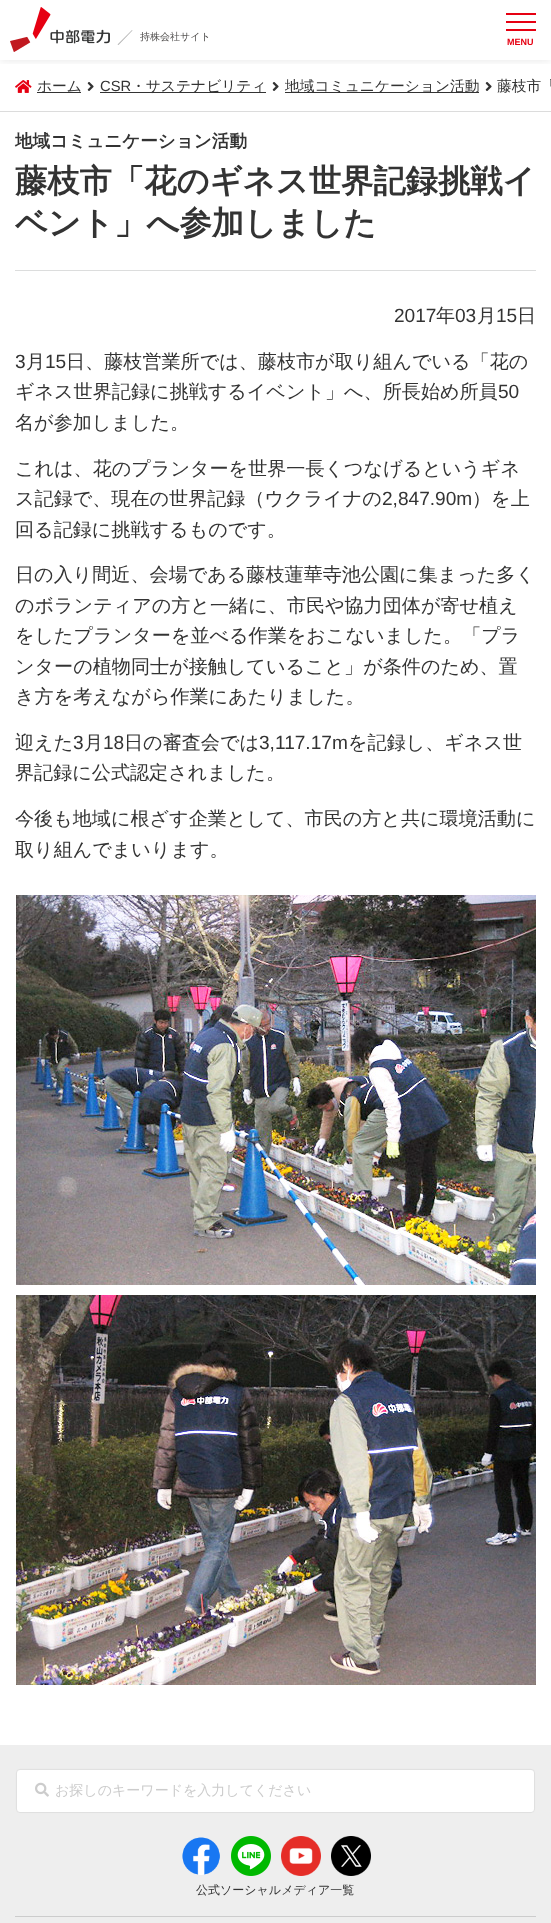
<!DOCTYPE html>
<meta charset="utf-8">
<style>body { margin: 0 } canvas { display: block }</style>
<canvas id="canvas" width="551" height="1923"></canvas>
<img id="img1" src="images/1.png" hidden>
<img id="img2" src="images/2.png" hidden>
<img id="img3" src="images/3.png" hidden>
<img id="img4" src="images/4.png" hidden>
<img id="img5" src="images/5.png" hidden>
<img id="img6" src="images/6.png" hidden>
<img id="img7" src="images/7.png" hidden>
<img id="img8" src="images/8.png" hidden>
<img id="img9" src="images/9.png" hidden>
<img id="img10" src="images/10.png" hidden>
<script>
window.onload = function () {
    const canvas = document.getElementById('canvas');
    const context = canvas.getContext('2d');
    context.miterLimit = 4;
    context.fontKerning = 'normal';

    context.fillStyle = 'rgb(255, 255, 255)';
    context.fillRect(0, 0, 551, 1923);
    context.save();
    context.beginPath();
    context.rect(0, 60, 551, 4);
    context.clip();
    context.fillStyle = 'rgba(0, 0, 0, 0.1)';
    context.filter = 'blur(5px)';
    context.beginPath();
    context.rect(0, 0, 551, 60);
    context.fill();
    context.filter = 'none';
    context.restore();
    context.drawImage(document.getElementById('img1'), 10, 7, 100, 45);
    context.fillStyle = 'rgb(180, 180, 180)';
    context.beginPath();
    context.moveTo(117.5, 44.5);
    context.lineTo(132, 30);
    context.lineTo(132.5, 30.5);
    context.lineTo(118.5, 45);
    context.closePath();
    context.fill();
    context.fillStyle = 'rgb(230, 0, 18)';
    context.fillRect(506, 13, 30, 2);
    context.fillRect(506, 21, 30, 2);
    context.fillRect(506, 29, 30, 2);
    context.fillStyle = 'rgb(220, 220, 220)';
    context.fillRect(0, 111, 551, 1);
    context.drawImage(document.getElementById('img2'), 15, 80, 17, 13);
    context.fillStyle = 'rgb(51, 51, 51)';
    context.fillRect(37, 92, 44, 1);
    context.drawImage(document.getElementById('img3'), 87, 82, 7, 9);
    context.fillRect(100, 92, 166, 1);
    context.drawImage(document.getElementById('img3'), 272, 82, 7, 9);
    context.fillRect(285, 92, 194, 1);
    context.drawImage(document.getElementById('img3'), 485, 82, 7, 9);
    context.fillStyle = 'rgb(220, 221, 221)';
    context.fillRect(15, 270, 521, 1);
    context.drawImage(document.getElementById('img4'), 16, 895, 520, 390);
    context.drawImage(document.getElementById('img5'), 16, 1295, 520, 390);
    context.fillStyle = 'rgb(238, 238, 238)';
    context.fillRect(0, 1745, 551, 178);
    context.fillStyle = 'rgb(204, 204, 204)';
    context.fillRect(15, 1916, 521, 1);
    context.fillStyle = 'rgb(255, 255, 255)';
    context.beginPath();
    context.roundRect(16.45, 1769.45, 518.1, 43.1, 3.55);
    context.fill();
    context.strokeStyle = 'rgb(220, 221, 221)';
    context.lineWidth = 0.9;
    context.stroke();
    context.drawImage(document.getElementById('img6'), 35, 1782, 14, 15);
    context.drawImage(document.getElementById('img7'), 182, 1837, 38, 38);
    context.drawImage(document.getElementById('img8'), 231, 1836, 40, 40);
    context.drawImage(document.getElementById('img9'), 281, 1836, 40, 40);
    context.drawImage(document.getElementById('img10'), 331, 1836, 40, 40);
    context.font = '500 10px WenQuanYi Zen Hei';
    context.fillStyle = 'rgb(81, 79, 78)';
    context.fillText('持株会社サイト', 140, 40);
    context.font = 'bold 9px Liberation Sans';
    context.fillStyle = 'rgb(230, 0, 18)';
    context.fillText('MENU', 507, 45);
    context.font = '500 14.75px WenQuanYi Zen Hei';
    context.fillStyle = 'rgb(51, 51, 51)';
    context.fillText('ホーム', 37, 91);
    context.font = '14.75px Liberation Sans';
    context.fillText('CSR', 100, 91);
    context.font = '500 14.75px WenQuanYi Zen Hei';
    context.fillText('・サステナビリティ', 131, 91);
    context.fillText('地域コミュニケーション活動', 285, 91);
    context.fillText('藤枝市「', 497, 91);
    context.font = 'bold 17.6px WenQuanYi Zen Hei';
    context.fillText('地域コミュニケーション活動', 15, 147);
    context.font = 'bold 32.3px WenQuanYi Zen Hei';
    context.fillText('藤枝市「花のギネス世界記録挑戦イ', 15, 192);
    context.fillText('ベント」へ参加しました', 15, 234);
    context.font = '19.1px Liberation Sans';
    context.fillText('2017', 394, 322);
    context.font = '500 19.1px WenQuanYi Zen Hei';
    context.fillText('年', 436, 322);
    context.font = '19.1px Liberation Sans';
    context.fillText('03', 455, 322);
    context.font = '500 19.1px WenQuanYi Zen Hei';
    context.fillText('月', 477, 322);
    context.font = '19.1px Liberation Sans';
    context.fillText('15', 496, 322);
    context.font = '500 19.1px WenQuanYi Zen Hei';
    context.fillText('日', 517, 322);
    context.font = '19.1px Liberation Sans';
    context.fillText('3', 15, 368);
    context.font = '500 19.1px WenQuanYi Zen Hei';
    context.fillText('月', 26, 368);
    context.font = '19.1px Liberation Sans';
    context.fillText('15', 45, 368);
    context.font = '500 19.1px WenQuanYi Zen Hei';
    context.fillText('日、藤枝営業所では、藤枝市が取り組んでいる「花の', 66, 368);
    context.fillText('ギネス世界記録に挑戦するイベント」へ、所長始め所員', 15, 398);
    context.font = '19.1px Liberation Sans';
    context.fillText('50', 498, 398);
    context.font = '500 19.1px WenQuanYi Zen Hei';
    context.fillText('名が参加しました。', 15, 429);
    context.fillText('これは、花のプランターを世界一長くつなげるというギネ', 15, 475);
    context.fillText('ス記録で、現在の世界記録（ウクライナの', 15, 505);
    context.font = '19.1px Liberation Sans';
    context.fillText('2,847.90m', 382, 505);
    context.font = '500 19.1px WenQuanYi Zen Hei';
    context.fillText('）を上', 472, 505);
    context.fillText('回る記録に挑戦するものです。', 15, 536);
    context.fillText('日の入り間近、会場である藤枝蓮華寺池公園に集まった多く', 15, 581);
    context.fillText('のボランティアの方と一緒に、市民や協力団体が寄せ植え', 15, 612);
    context.fillText('をしたプランターを並べる作業をおこないました。「プラ', 15, 642);
    context.fillText('ンターの植物同士が接触していること」が条件のため、置', 15, 673);
    context.fillText('き方を考えながら作業にあたりました。', 15, 703);
    context.fillText('迎えた', 15, 749);
    context.font = '19.1px Liberation Sans';
    context.fillText('3', 73, 749);
    context.font = '500 19.1px WenQuanYi Zen Hei';
    context.fillText('月', 84, 749);
    context.font = '19.1px Liberation Sans';
    context.fillText('18', 103, 749);
    context.font = '500 19.1px WenQuanYi Zen Hei';
    context.fillText('日の審査会では', 124, 749);
    context.font = '19.1px Liberation Sans';
    context.fillText('3,117.17m', 259, 749);
    context.font = '500 19.1px WenQuanYi Zen Hei';
    context.fillText('を記録し、ギネス世', 348, 749);
    context.fillText('界記録に公式認定されました。', 15, 779);
    context.fillText('今後も地域に根ざす企業として、市民の方と共に環境活動に', 15, 825);
    context.fillText('取り組んでまいります。', 15, 856);
    context.font = '500 14px WenQuanYi Zen Hei';
    context.fillStyle = 'rgb(204, 204, 204)';
    context.fillText('お探しのキーワードを入力してください', 55, 1795);
    context.font = '500 12px WenQuanYi Zen Hei';
    context.fillStyle = 'rgb(51, 51, 51)';
    context.fillText('公式ソーシャルメディア一覧', 196, 1894);
};
</script>
